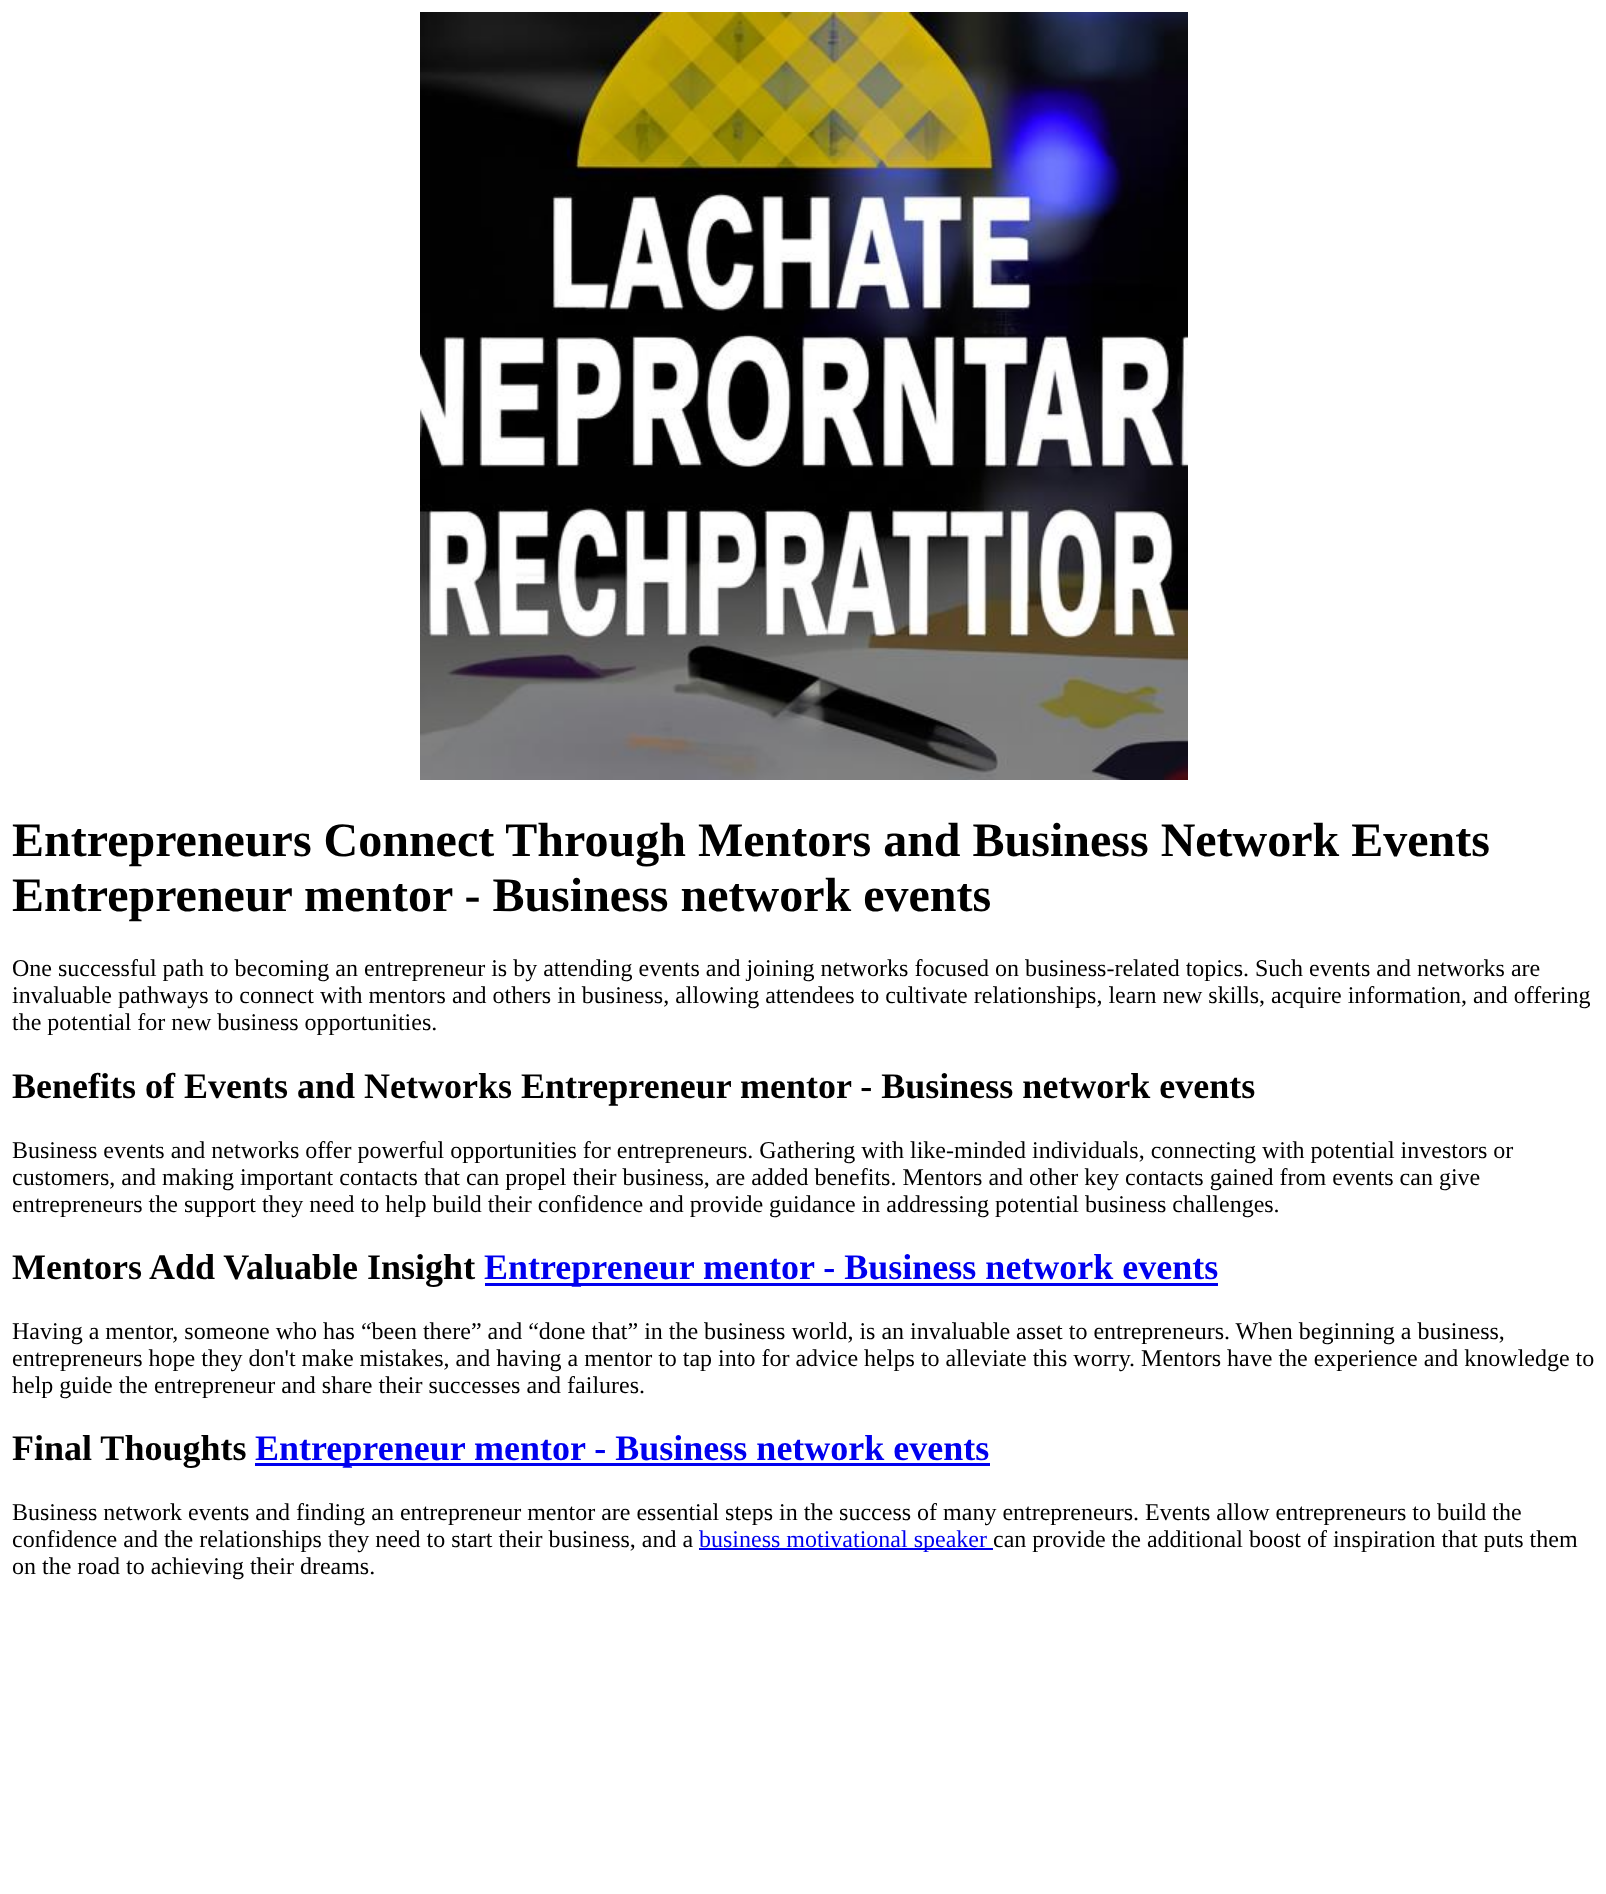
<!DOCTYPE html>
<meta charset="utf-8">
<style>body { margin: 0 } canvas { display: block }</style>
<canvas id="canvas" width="1606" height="1894"></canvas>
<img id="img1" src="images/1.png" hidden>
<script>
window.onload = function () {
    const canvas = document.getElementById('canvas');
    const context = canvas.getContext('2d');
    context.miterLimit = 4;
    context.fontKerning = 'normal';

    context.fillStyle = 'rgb(255, 255, 255)';
    context.fillRect(0, 0, 1606, 1894);
    context.drawImage(document.getElementById('img1'), 420, 12, 768, 768);
    context.fillStyle = 'rgb(0, 0, 238)';
    context.fillRect(485, 1283, 733, 3);
    context.fillRect(255, 1463, 735, 3);
    context.fillRect(699, 1548, 294, 2);
    context.font = 'bold 48px Liberation Serif';
    context.fillStyle = 'rgb(0, 0, 0)';
    context.fillText('Entrepreneurs Connect Through Mentors and Business Network Events', 12, 856);
    context.fillText('Entrepreneur mentor - Business network events', 12, 911);
    context.font = '24px Liberation Serif';
    context.fillText('One successful path to becoming an entrepreneur is by attending events and joining networks focused on business-related topics. Such events and networks are', 12, 976);
    context.fillText('invaluable pathways to connect with mentors and others in business, allowing attendees to cultivate relationships, learn new skills, acquire information, and offering', 12, 1003);
    context.fillText('the potential for new business opportunities.', 12, 1030);
    context.font = 'bold 36px Liberation Serif';
    context.fillText('Benefits of Events and Networks Entrepreneur mentor - Business network events', 12, 1098);
    context.font = '24px Liberation Serif';
    context.fillText('Business events and networks offer powerful opportunities for entrepreneurs. Gathering with like-minded individuals, connecting with potential investors or', 12, 1158);
    context.fillText('customers, and making important contacts that can propel their business, are added benefits. Mentors and other key contacts gained from events can give', 12, 1185);
    context.fillText('entrepreneurs the support they need to help build their confidence and provide guidance in addressing potential business challenges.', 12, 1212);
    context.font = 'bold 36px Liberation Serif';
    context.fillText('Mentors Add Valuable Insight', 12, 1279);
    context.fillStyle = 'rgb(0, 0, 238)';
    context.fillText('Entrepreneur mentor - Business network events', 484, 1279);
    context.font = '24px Liberation Serif';
    context.fillStyle = 'rgb(0, 0, 0)';
    context.fillText('Having a mentor, someone who has “been there” and “done that” in the business world, is an invaluable asset to entrepreneurs. When beginning a business,', 12, 1339);
    context.fillText('entrepreneurs hope they don\'t make mistakes, and having a mentor to tap into for advice helps to alleviate this worry. Mentors have the experience and knowledge to', 12, 1366);
    context.fillText('help guide the entrepreneur and share their successes and failures.', 12, 1393);
    context.font = 'bold 36px Liberation Serif';
    context.fillText('Final Thoughts', 12, 1460);
    context.fillStyle = 'rgb(0, 0, 238)';
    context.fillText('Entrepreneur mentor - Business network events', 255, 1460);
    context.font = '24px Liberation Serif';
    context.fillStyle = 'rgb(0, 0, 0)';
    context.fillText('Business network events and finding an entrepreneur mentor are essential steps in the success of many entrepreneurs. Events allow entrepreneurs to build the', 12, 1520);
    context.fillText('confidence and the relationships they need to start their business, and a', 12, 1547);
    context.fillStyle = 'rgb(0, 0, 238)';
    context.fillText('business motivational speaker', 699, 1547);
    context.fillStyle = 'rgb(0, 0, 0)';
    context.fillText('can provide the additional boost of inspiration that puts them', 993, 1547);
    context.fillText('on the road to achieving their dreams.', 12, 1574);
};
</script>
